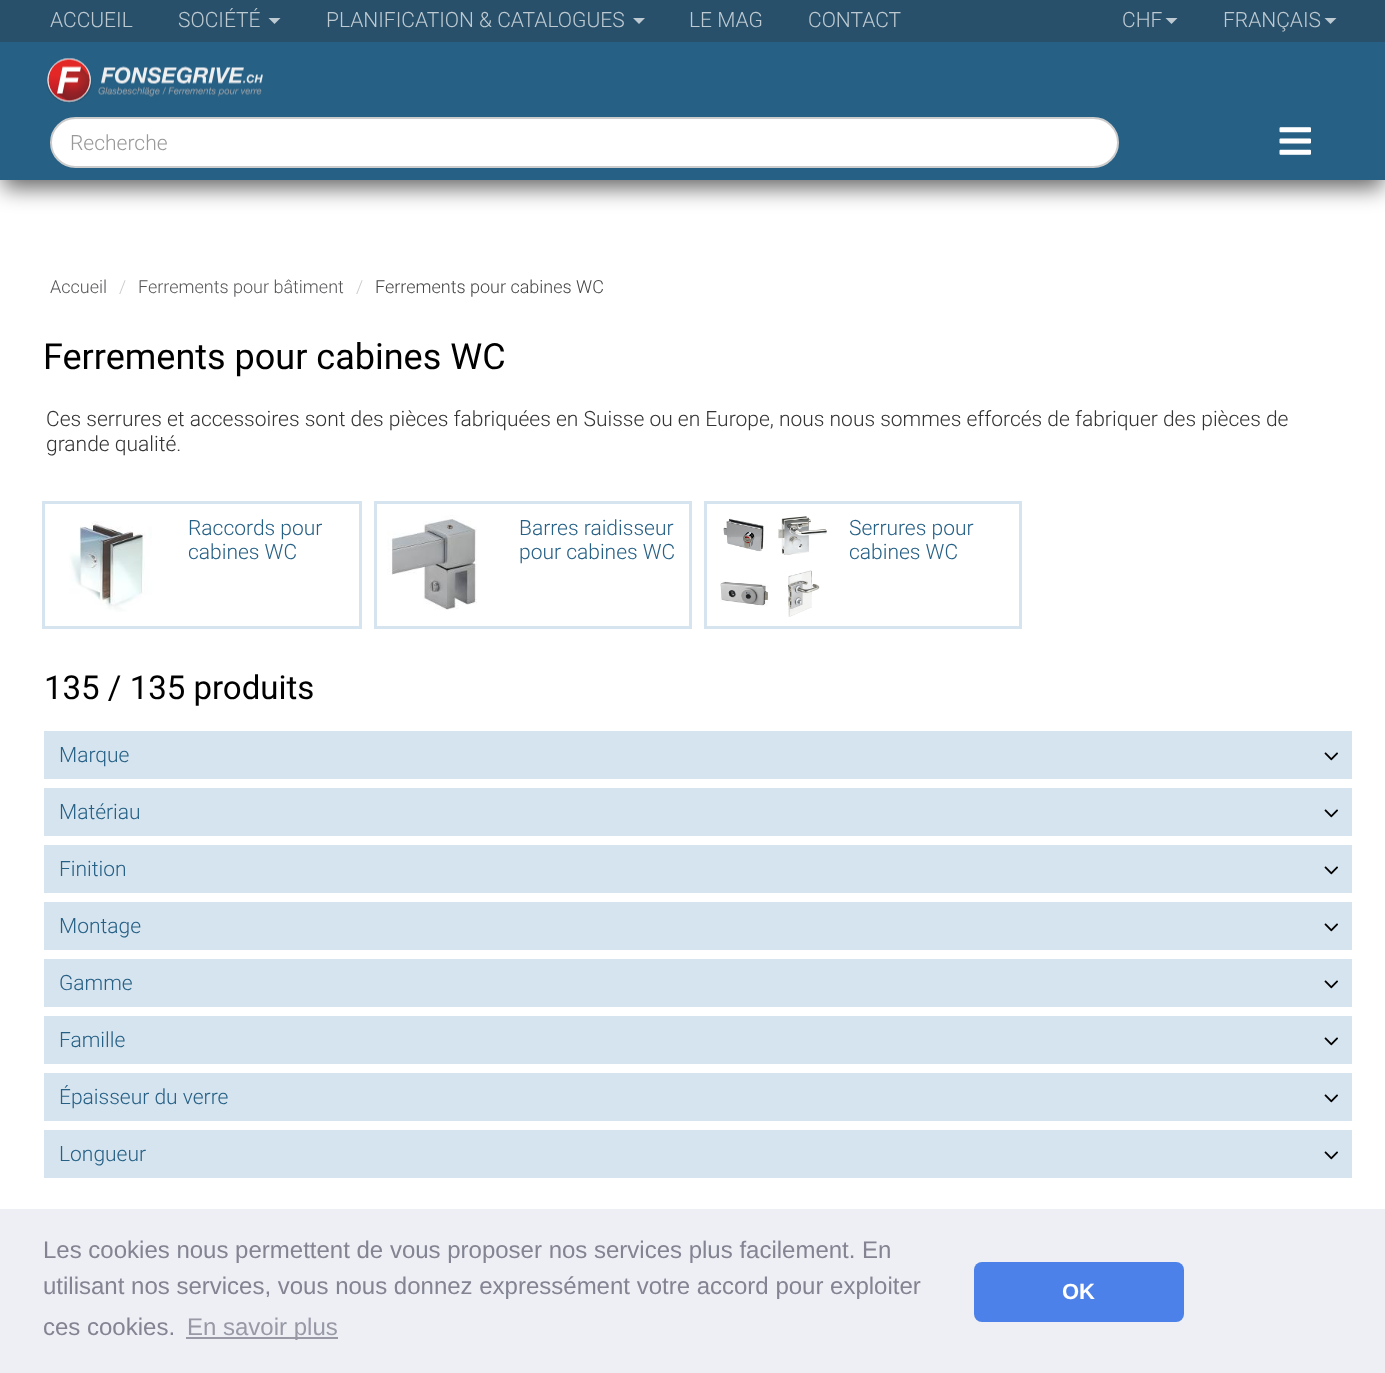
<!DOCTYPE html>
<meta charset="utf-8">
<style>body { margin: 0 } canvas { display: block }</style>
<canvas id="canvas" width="1385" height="1373"></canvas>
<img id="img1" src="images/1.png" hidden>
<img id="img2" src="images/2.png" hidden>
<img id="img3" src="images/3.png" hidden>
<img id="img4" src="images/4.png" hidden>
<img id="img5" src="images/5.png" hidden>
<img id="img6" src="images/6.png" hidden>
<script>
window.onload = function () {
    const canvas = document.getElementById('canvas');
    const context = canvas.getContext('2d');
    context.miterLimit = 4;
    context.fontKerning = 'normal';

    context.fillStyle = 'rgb(255, 255, 255)';
    context.fillRect(0, 0, 1385, 1373);
    context.fillStyle = 'rgba(0, 0, 0, 0.6)';
    context.filter = 'blur(11px)';
    context.beginPath();
    context.rect(3, 56, 1380, 132);
    context.fill();
    context.filter = 'none';
    context.fillStyle = 'rgb(41, 80, 107)';
    context.fillRect(0, 0, 1385, 42);
    context.fillStyle = 'rgb(190, 202, 210)';
    context.beginPath();
    context.moveTo(268.5, 18);
    context.lineTo(280.5, 18);
    context.lineTo(274.5, 24);
    context.closePath();
    context.fill();
    context.beginPath();
    context.moveTo(633, 18);
    context.lineTo(645, 18);
    context.lineTo(639, 24);
    context.closePath();
    context.fill();
    context.beginPath();
    context.moveTo(1165.5, 18);
    context.lineTo(1177.5, 18);
    context.lineTo(1171.5, 24);
    context.closePath();
    context.fill();
    context.beginPath();
    context.moveTo(1324.5, 18);
    context.lineTo(1336.5, 18);
    context.lineTo(1330.5, 24);
    context.closePath();
    context.fill();
    context.fillStyle = 'rgb(38, 96, 133)';
    context.fillRect(0, 42, 1385, 138);
    context.drawImage(document.getElementById('img1'), 46, 58, 217, 45);
    context.fillStyle = 'rgb(255, 255, 255)';
    context.beginPath();
    context.roundRect(51, 118, 1067, 49, 24.5);
    context.fill();
    context.strokeStyle = 'rgb(204, 204, 204)';
    context.lineWidth = 2;
    context.stroke();
    context.drawImage(document.getElementById('img2'), 1279, 127, 32, 28);
    context.strokeStyle = 'rgb(214, 228, 239)';
    context.lineWidth = 3;
    context.strokeRect(43.5, 502.5, 317, 125);
    context.drawImage(document.getElementById('img3'), 69, 521, 83, 91);
    context.strokeRect(375.5, 502.5, 315, 125);
    context.drawImage(document.getElementById('img4'), 387, 515, 90, 95);
    context.strokeRect(705.5, 502.5, 315, 125);
    context.drawImage(document.getElementById('img5'), 720, 516, 107, 101);
    context.fillStyle = 'rgb(214, 228, 239)';
    context.fillRect(44, 731, 1308, 48);
    context.drawImage(document.getElementById('img6'), 1324, 752, 14, 9);
    context.fillRect(44, 788, 1308, 48);
    context.drawImage(document.getElementById('img6'), 1324, 809, 14, 9);
    context.fillRect(44, 845, 1308, 48);
    context.drawImage(document.getElementById('img6'), 1324, 866, 14, 9);
    context.fillRect(44, 902, 1308, 48);
    context.drawImage(document.getElementById('img6'), 1324, 923, 14, 9);
    context.fillRect(44, 959, 1308, 48);
    context.drawImage(document.getElementById('img6'), 1324, 980, 14, 9);
    context.fillRect(44, 1016, 1308, 48);
    context.drawImage(document.getElementById('img6'), 1324, 1037, 14, 9);
    context.fillRect(44, 1073, 1308, 48);
    context.drawImage(document.getElementById('img6'), 1324, 1094, 14, 9);
    context.fillRect(44, 1130, 1308, 48);
    context.drawImage(document.getElementById('img6'), 1324, 1151, 14, 9);
    context.fillStyle = 'rgb(237, 239, 245)';
    context.fillRect(0, 1209, 1385, 164);
    context.fillStyle = 'rgb(152, 153, 165)';
    context.fillRect(186, 1337, 152, 2);
    context.fillStyle = 'rgb(75, 129, 232)';
    context.beginPath();
    context.roundRect(974, 1262, 210, 60, 8);
    context.fill();
    context.font = '300 21px Roboto';
    context.fillStyle = 'rgb(190, 202, 210)';
    context.fillText('ACCUEIL', 50, 27);
    context.fillText('SOCIÉTÉ', 178, 27);
    context.fillText('PLANIFICATION & CATALOGUES', 326, 27);
    context.fillText('LE MAG', 689, 27);
    context.fillText('CONTACT', 808, 27);
    context.fillText('CHF', 1122, 27);
    context.fillText('FRANÇAIS', 1223, 27);
    context.fillStyle = 'rgb(153, 153, 153)';
    context.fillText('Recherche', 70, 150);
    context.font = '300 18px Roboto';
    context.fillStyle = 'rgb(85, 85, 88)';
    context.fillText('Accueil', 50, 293);
    context.fillStyle = 'rgb(204, 204, 204)';
    context.fillText('/', 119, 293);
    context.fillStyle = 'rgb(85, 85, 88)';
    context.fillText('Ferrements pour bâtiment', 138, 293);
    context.fillStyle = 'rgb(204, 204, 204)';
    context.fillText('/', 356, 293);
    context.fillStyle = 'rgb(68, 68, 68)';
    context.fillText('Ferrements pour cabines WC', 375, 293);
    context.font = '36px Roboto';
    context.fillStyle = 'rgb(0, 0, 0)';
    context.fillText('Ferrements pour cabines WC', 43, 369);
    context.font = '300 21px Roboto';
    context.fillStyle = 'rgb(51, 51, 51)';
    context.fillText('Ces serrures et accessoires sont des pièces fabriquées en Suisse ou en Europe, nous nous sommes efforcés de fabriquer des pièces de', 46, 426);
    context.fillText('grande qualité.', 46, 451);
    context.fillStyle = 'rgb(38, 96, 133)';
    context.fillText('Raccords pour', 188, 535);
    context.fillText('cabines WC', 188, 559);
    context.fillText('Barres raidisseur', 519, 535);
    context.fillText('pour cabines WC', 519, 559);
    context.fillText('Serrures pour', 849, 535);
    context.fillText('cabines WC', 849, 559);
    context.font = '33px Roboto';
    context.fillStyle = 'rgb(0, 0, 0)';
    context.fillText('135 / 135 produits', 44, 699);
    context.font = '300 21px Roboto';
    context.fillStyle = 'rgb(38, 96, 133)';
    context.fillText('Marque', 59, 762);
    context.fillText('Matériau', 59, 819);
    context.fillText('Finition', 59, 876);
    context.fillText('Montage', 59, 933);
    context.fillText('Gamme', 59, 990);
    context.fillText('Famille', 59, 1047);
    context.fillText('Épaisseur du verre', 59, 1104);
    context.fillText('Longueur', 59, 1161);
    context.font = '24px Liberation Sans';
    context.fillStyle = 'rgb(131, 131, 145)';
    context.fillText('Les cookies nous permettent de vous proposer nos services plus facilement. En', 43, 1258);
    context.fillText('utilisant nos services, vous nous donnez expressément votre accord pour exploiter', 43, 1294);
    context.fillText('ces cookies.', 43, 1335);
    context.fillStyle = 'rgb(152, 153, 165)';
    context.fillText('En savoir plus', 187, 1335);
    context.font = 'bold 22px Liberation Sans';
    context.fillStyle = 'rgb(255, 255, 255)';
    context.fillText('OK', 1062, 1299);
};
</script>
